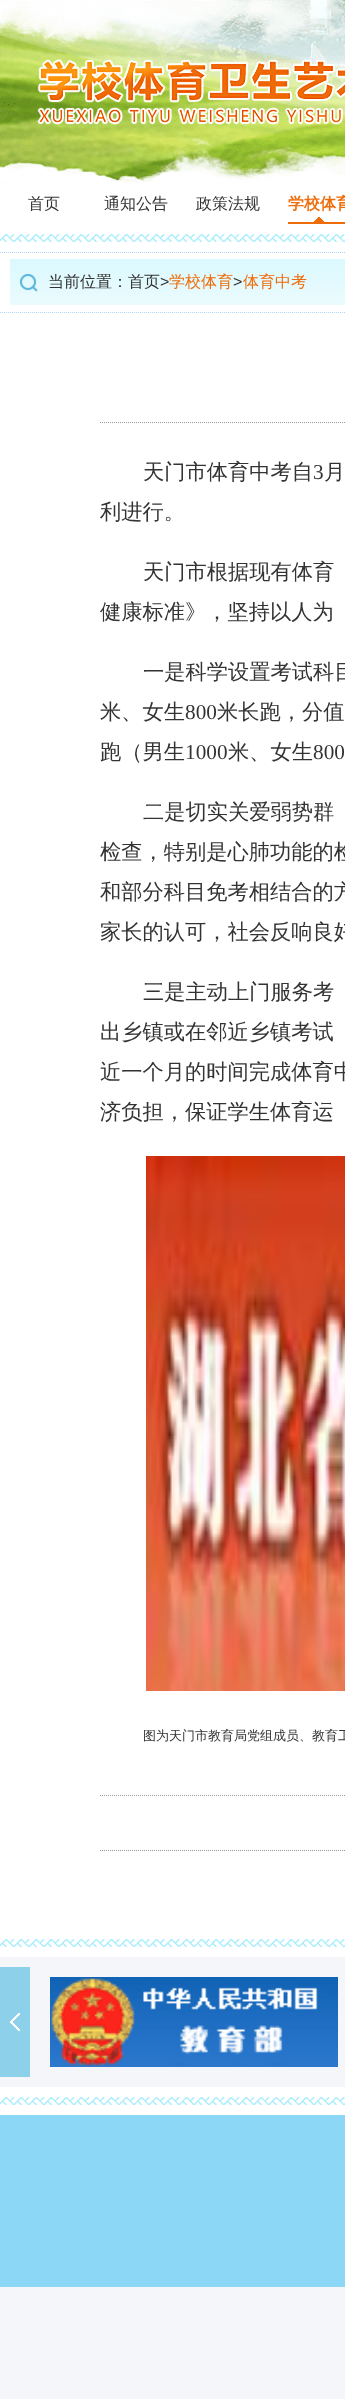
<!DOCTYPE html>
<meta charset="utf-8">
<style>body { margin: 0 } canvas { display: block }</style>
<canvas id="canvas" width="345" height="2399"></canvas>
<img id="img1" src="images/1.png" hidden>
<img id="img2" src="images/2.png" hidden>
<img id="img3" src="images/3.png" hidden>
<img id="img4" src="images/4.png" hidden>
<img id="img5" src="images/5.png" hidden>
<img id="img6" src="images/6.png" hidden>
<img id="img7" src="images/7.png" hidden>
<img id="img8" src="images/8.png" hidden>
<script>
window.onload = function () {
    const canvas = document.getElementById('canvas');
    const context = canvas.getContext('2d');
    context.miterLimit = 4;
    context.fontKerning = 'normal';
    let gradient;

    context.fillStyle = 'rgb(245, 246, 250)';
    context.fillRect(0, 0, 345, 2399);
    context.drawImage(document.getElementById('img1'), 0, 0, 345, 184);
    context.drawImage(document.getElementById('img2'), 37, 59, 308, 66);
    context.fillStyle = 'rgb(255, 255, 255)';
    context.fillRect(0, 184, 345, 1773);
    context.drawImage(document.getElementById('img3'), 288, 216, 57, 8);
    context.drawImage(document.getElementById('img4'), 0, 234, 345, 8);
    context.beginPath();
    context.moveTo(0, 252.5);
    context.lineTo(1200, 252.5);
    context.strokeStyle = 'rgb(174, 213, 253)';
    context.setLineDash([1, 1]);
    context.stroke();
    context.beginPath();
    context.moveTo(0, 312.5);
    context.lineTo(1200, 312.5);
    context.stroke();
    gradient = context.createLinearGradient(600, 259, 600, 305);
    gradient.addColorStop(0, 'rgb(218, 249, 254)');
    gradient.addColorStop(1, 'rgb(235, 251, 254)');
    context.fillStyle = gradient;
    context.fillRect(10, 259, 335, 46);
    context.drawImage(document.getElementById('img5'), 20, 274, 18, 18);
    context.beginPath();
    context.moveTo(100, 422.5);
    context.lineTo(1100, 422.5);
    context.strokeStyle = 'rgb(153, 153, 153)';
    context.stroke();
    context.drawImage(document.getElementById('img6'), 146, 1156, 199, 535);
    context.beginPath();
    context.moveTo(100, 1795.5);
    context.lineTo(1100, 1795.5);
    context.stroke();
    context.beginPath();
    context.moveTo(100, 1850.5);
    context.lineTo(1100, 1850.5);
    context.stroke();
    context.drawImage(document.getElementById('img4'), 0, 1939, 345, 8);
    context.fillStyle = 'rgb(140, 209, 233)';
    context.fillRect(0, 1967, 30, 110);
    context.drawImage(document.getElementById('img7'), 10, 2013, 10, 18);
    context.drawImage(document.getElementById('img8'), 50, 1977, 288, 90);
    context.fillStyle = 'rgb(255, 255, 255)';
    context.fillRect(0, 2087, 345, 28);
    context.drawImage(document.getElementById('img4'), 0, 2097, 345, 8);
    context.fillStyle = 'rgb(141, 215, 246)';
    context.fillRect(0, 2115, 345, 172);
    context.font = '500 16px WenQuanYi Zen Hei';
    context.fillStyle = 'rgb(51, 51, 51)';
    context.fillText('首页', 28, 209);
    context.fillText('通知公告', 104, 209);
    context.fillText('政策法规', 196, 209);
    context.font = 'bold 16px WenQuanYi Zen Hei';
    context.fillStyle = 'rgb(239, 108, 11)';
    context.fillText('学校体育', 288, 209);
    context.font = '500 16px WenQuanYi Zen Hei';
    context.fillStyle = 'rgb(51, 51, 51)';
    context.fillText('当前位置：首页', 48, 287);
    context.font = '16px Liberation Sans';
    context.fillText('>', 160, 287);
    context.font = '500 16px WenQuanYi Zen Hei';
    context.fillStyle = 'rgb(239, 108, 11)';
    context.fillText('学校体育', 169, 287);
    context.font = '16px Liberation Sans';
    context.fillStyle = 'rgb(51, 51, 51)';
    context.fillText('>', 233, 287);
    context.font = '500 16px WenQuanYi Zen Hei';
    context.fillStyle = 'rgb(239, 108, 11)';
    context.fillText('体育中考', 243, 287);
    context.font = '500 21.25px WenQuanYi Zen Hei';
    context.fillStyle = 'rgb(51, 51, 51)';
    context.fillText('天门市体育中考自', 143, 479);
    context.font = '21.25px Liberation Serif';
    context.fillText('3', 313, 479);
    context.font = '500 21.25px WenQuanYi Zen Hei';
    context.fillText('月', 324, 479);
    context.fillText('利进行。', 100, 519);
    context.fillText('天门市根据现有体育', 143, 579);
    context.fillText('健康标准》，坚持以人为', 100, 619);
    context.fillText('一是科学设置考试科目', 143, 679);
    context.fillText('米、女生', 100, 719);
    context.font = '21.25px Liberation Serif';
    context.fillText('800', 185, 719);
    context.font = '500 21.25px WenQuanYi Zen Hei';
    context.fillText('米长跑，分值', 217, 719);
    context.fillText('跑（男生', 100, 759);
    context.font = '21.25px Liberation Serif';
    context.fillText('1000', 185, 759);
    context.font = '500 21.25px WenQuanYi Zen Hei';
    context.fillText('米、女生', 228, 759);
    context.font = '21.25px Liberation Serif';
    context.fillText('800', 313, 759);
    context.font = '500 21.25px WenQuanYi Zen Hei';
    context.fillText('二是切实关爱弱势群', 143, 819);
    context.fillText('检查，特别是心肺功能的检', 100, 859);
    context.fillText('和部分科目免考相结合的方', 100, 899);
    context.fillText('家长的认可，社会反响良好', 100, 939);
    context.fillText('三是主动上门服务考', 143, 999);
    context.fillText('出乡镇或在邻近乡镇考试', 100, 1039);
    context.fillText('近一个月的时间完成体育中', 100, 1079);
    context.fillText('济负担，保证学生体育运', 100, 1119);
    context.font = '500 13px WenQuanYi Zen Hei';
    context.fillText('图为天门市教育局党组成员、教育工', 143, 1740);
};
</script>
